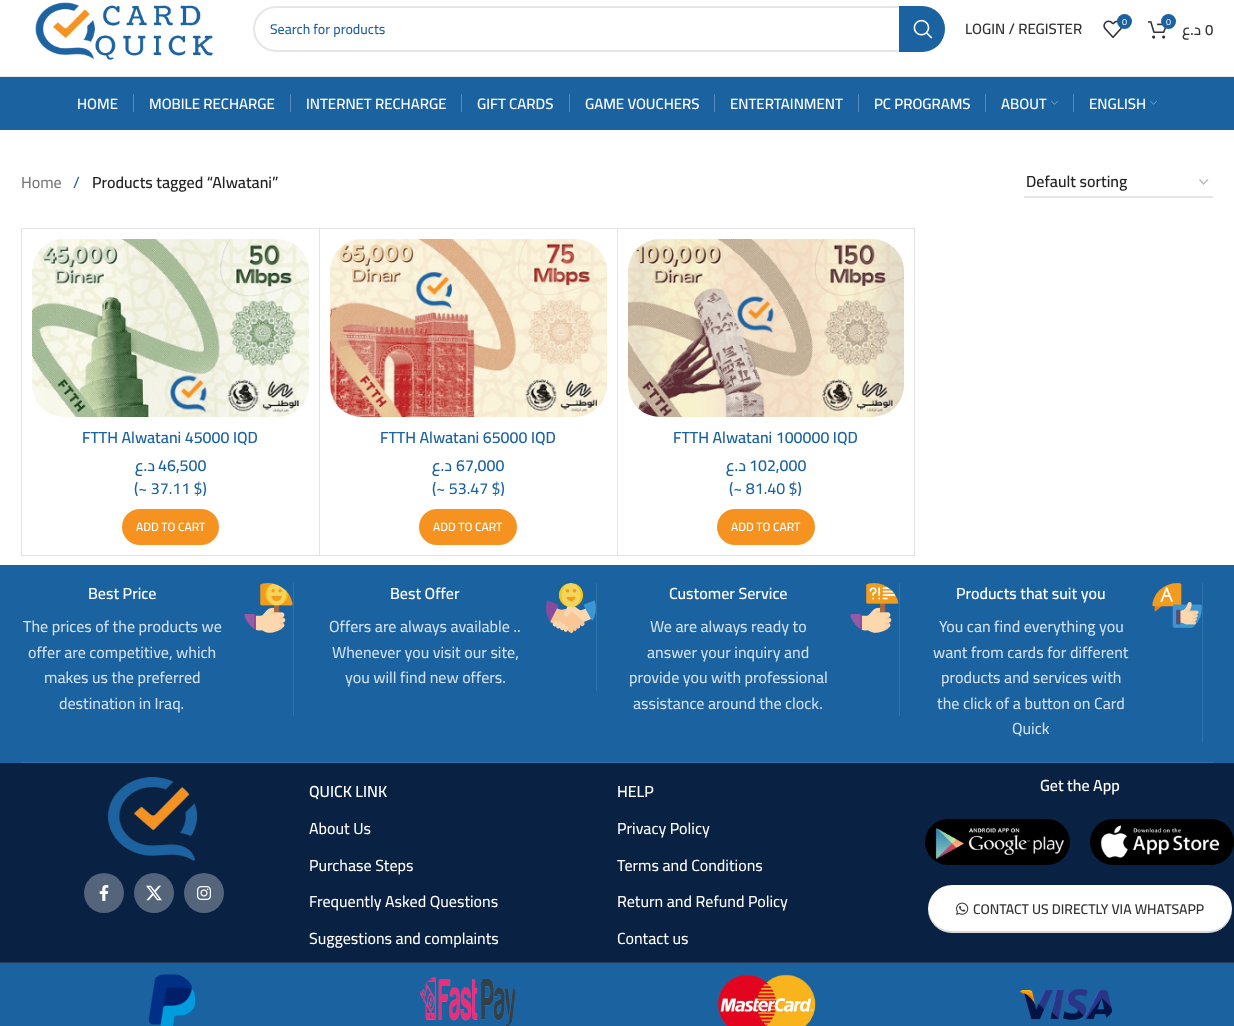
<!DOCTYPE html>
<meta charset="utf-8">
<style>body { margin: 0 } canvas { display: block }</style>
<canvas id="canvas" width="1234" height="1026"></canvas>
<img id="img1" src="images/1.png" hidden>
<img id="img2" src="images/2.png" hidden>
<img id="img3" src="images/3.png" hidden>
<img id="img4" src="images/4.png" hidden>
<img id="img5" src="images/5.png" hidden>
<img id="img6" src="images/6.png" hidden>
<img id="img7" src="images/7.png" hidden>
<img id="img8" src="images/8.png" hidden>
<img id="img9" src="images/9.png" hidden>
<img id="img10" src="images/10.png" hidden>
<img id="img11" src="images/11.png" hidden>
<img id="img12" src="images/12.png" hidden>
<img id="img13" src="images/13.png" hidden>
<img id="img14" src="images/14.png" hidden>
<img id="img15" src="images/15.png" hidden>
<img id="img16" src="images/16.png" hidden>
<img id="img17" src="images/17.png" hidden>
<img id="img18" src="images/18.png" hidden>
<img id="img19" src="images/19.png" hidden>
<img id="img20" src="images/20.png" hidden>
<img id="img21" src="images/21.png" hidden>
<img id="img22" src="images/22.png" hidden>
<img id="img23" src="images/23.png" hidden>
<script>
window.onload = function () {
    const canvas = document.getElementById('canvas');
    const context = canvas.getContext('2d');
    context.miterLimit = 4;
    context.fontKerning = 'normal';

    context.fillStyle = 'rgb(255, 255, 255)';
    context.fillRect(0, 0, 1234, 1026);
    context.fillStyle = 'rgb(232, 232, 232)';
    context.fillRect(0, 76, 1234, 1);
    context.drawImage(document.getElementById('img1'), 35, 2, 178, 58);
    context.beginPath();
    context.roundRect(254, 7, 690, 44, 22);
    context.strokeStyle = 'rgb(230, 230, 230)';
    context.lineWidth = 2;
    context.stroke();
    context.fillStyle = 'rgb(27, 98, 161)';
    context.beginPath();
    context.roundRect(899, 6, 46, 46, [0, 23, 23, 0]);
    context.fill();
    context.drawImage(document.getElementById('img2'), 913, 19, 20, 20);
    context.drawImage(document.getElementById('img3'), 1103, 20, 20, 18);
    context.beginPath();
    context.arc(1124.5, 21.5, 7.5, 0, 2 * Math.PI);
    context.fill();
    context.drawImage(document.getElementById('img4'), 1148, 21, 19, 18);
    context.beginPath();
    context.arc(1168.5, 21.5, 7.5, 0, 2 * Math.PI);
    context.fill();
    context.fillRect(0, 77, 1234, 53);
    context.fillStyle = 'rgb(84, 137, 185)';
    context.fillRect(133, 94, 1, 18);
    context.fillRect(290, 94, 1, 18);
    context.fillRect(461, 94, 1, 18);
    context.fillRect(569, 94, 1, 18);
    context.fillRect(714, 94, 1, 18);
    context.fillRect(858, 94, 1, 18);
    context.fillRect(985, 94, 1, 18);
    context.drawImage(document.getElementById('img5'), 1051, 100, 7, 5);
    context.fillRect(1073, 94, 1, 18);
    context.drawImage(document.getElementById('img5'), 1150, 100, 7, 5);
    context.beginPath();
    context.moveTo(1199.5, 179.5);
    context.lineTo(1203.5, 184);
    context.lineTo(1208, 179.5);
    context.strokeStyle = 'rgb(187, 187, 187)';
    context.lineWidth = 1.4;
    context.stroke();
    context.fillStyle = 'rgb(230, 230, 230)';
    context.fillRect(1024, 196, 189, 2);
    context.fillStyle = 'rgb(228, 228, 228)';
    context.fillRect(21, 228, 1, 328);
    context.beginPath();
    context.moveTo(22, 228);
    context.lineTo(320, 228);
    context.lineTo(319, 229);
    context.lineTo(22, 229);
    context.closePath();
    context.fill();
    context.fillStyle = 'rgba(0, 0, 0, 0.11)';
    context.beginPath();
    context.moveTo(320, 228);
    context.lineTo(320, 556);
    context.lineTo(319, 555);
    context.lineTo(319, 229);
    context.closePath();
    context.fill();
    context.beginPath();
    context.moveTo(320, 556);
    context.lineTo(22, 556);
    context.lineTo(22, 555);
    context.lineTo(319, 555);
    context.closePath();
    context.fill();
    context.drawImage(document.getElementById('img6'), 32, 239, 277, 178);
    context.fillStyle = 'rgb(246, 147, 32)';
    context.beginPath();
    context.roundRect(122, 509, 97, 36, 18);
    context.fill();
    context.fillStyle = 'rgb(228, 228, 228)';
    context.beginPath();
    context.moveTo(320, 228);
    context.lineTo(618, 228);
    context.lineTo(617, 229);
    context.lineTo(320, 229);
    context.closePath();
    context.fill();
    context.fillStyle = 'rgba(0, 0, 0, 0.11)';
    context.beginPath();
    context.moveTo(618, 228);
    context.lineTo(618, 556);
    context.lineTo(617, 555);
    context.lineTo(617, 229);
    context.closePath();
    context.fill();
    context.beginPath();
    context.moveTo(618, 556);
    context.lineTo(320, 556);
    context.lineTo(320, 555);
    context.lineTo(617, 555);
    context.closePath();
    context.fill();
    context.drawImage(document.getElementById('img7'), 330, 239, 277, 178);
    context.fillStyle = 'rgb(246, 147, 32)';
    context.beginPath();
    context.roundRect(419, 509, 98, 36, 18);
    context.fill();
    context.fillStyle = 'rgb(228, 228, 228)';
    context.beginPath();
    context.moveTo(618, 228);
    context.lineTo(915, 228);
    context.lineTo(914, 229);
    context.lineTo(618, 229);
    context.closePath();
    context.fill();
    context.fillStyle = 'rgba(0, 0, 0, 0.11)';
    context.beginPath();
    context.moveTo(915, 228);
    context.lineTo(915, 556);
    context.lineTo(914, 555);
    context.lineTo(914, 229);
    context.closePath();
    context.fill();
    context.beginPath();
    context.moveTo(915, 556);
    context.lineTo(618, 556);
    context.lineTo(618, 555);
    context.lineTo(914, 555);
    context.closePath();
    context.fill();
    context.drawImage(document.getElementById('img8'), 628, 239, 276, 178);
    context.fillStyle = 'rgb(246, 147, 32)';
    context.beginPath();
    context.roundRect(717, 509, 98, 36, 18);
    context.fill();
    context.fillStyle = 'rgb(27, 98, 161)';
    context.fillRect(0, 565, 1234, 461);
    context.fillStyle = 'rgb(50, 114, 170)';
    context.fillRect(21, 762, 1192, 1);
    context.fillRect(293, 583, 1, 133);
    context.drawImage(document.getElementById('img9'), 243, 583, 50, 50);
    context.fillRect(596, 583, 1, 108);
    context.drawImage(document.getElementById('img10'), 546, 583, 50, 50);
    context.fillRect(899, 583, 1, 133);
    context.drawImage(document.getElementById('img11'), 849, 583, 50, 50);
    context.fillRect(1202, 583, 1, 159);
    context.drawImage(document.getElementById('img12'), 1152, 583, 50, 45);
    context.fillStyle = 'rgb(9, 33, 67)';
    context.fillRect(0, 763, 1234, 199);
    context.fillStyle = 'rgb(34, 55, 86)';
    context.fillRect(0, 962, 1234, 1);
    context.drawImage(document.getElementById('img13'), 108, 777, 89, 84);
    context.fillStyle = 'rgb(83, 100, 123)';
    context.beginPath();
    context.arc(104, 893, 20, 0, 2 * Math.PI);
    context.fill();
    context.drawImage(document.getElementById('img14'), 99, 885, 10, 16);
    context.beginPath();
    context.arc(154, 893, 20, 0, 2 * Math.PI);
    context.fill();
    context.drawImage(document.getElementById('img15'), 146, 885, 16, 16);
    context.beginPath();
    context.arc(204, 893, 20, 0, 2 * Math.PI);
    context.fill();
    context.drawImage(document.getElementById('img16'), 197, 886, 14, 14);
    context.drawImage(document.getElementById('img17'), 925, 819, 145, 46);
    context.drawImage(document.getElementById('img18'), 1090, 819, 144, 46);
    context.fillStyle = 'rgb(255, 255, 255)';
    context.beginPath();
    context.roundRect(928, 885, 304, 48, 24);
    context.fill();
    context.fillStyle = 'rgba(0, 0, 0, 0.15)';
    context.beginPath();
    context.moveTo(928, 908);
    context.lineTo(928, 909);
    context.bezierCurveTo(928, 922, 939, 933, 952, 933);
    context.lineTo(1208, 933);
    context.bezierCurveTo(1221, 933, 1232, 922, 1232, 909);
    context.lineTo(1232, 908);
    context.bezierCurveTo(1231, 921, 1221, 931, 1208, 931);
    context.lineTo(952, 931);
    context.bezierCurveTo(939, 931, 929, 921, 928, 908);
    context.closePath();
    context.fill();
    context.drawImage(document.getElementById('img19'), 956, 902, 13, 13);
    context.drawImage(document.getElementById('img20'), 148, 974, 47, 52);
    context.drawImage(document.getElementById('img21'), 419, 977, 97, 49);
    context.drawImage(document.getElementById('img22'), 717, 974, 99, 52);
    context.drawImage(document.getElementById('img23'), 1019, 989, 93, 31);
    context.font = '500 14px Cairo';
    context.fillStyle = 'rgb(27, 98, 161)';
    context.fillText('Search for products', 270, 34);
    context.font = '600 15px Cairo';
    context.fillStyle = 'rgb(51, 51, 51)';
    context.fillText('LOGIN / REGISTER', 965, 34);
    context.font = '9px Cairo';
    context.fillStyle = 'rgb(255, 255, 255)';
    context.fillText('0', 1122, 25);
    context.fillText('0', 1166, 25);
    context.direction = 'rtl';
    context.font = '600 15px Cairo';
    context.fillStyle = 'rgb(51, 51, 51)';
    context.fillText('د.ع', 1201, 35);
    context.direction = 'ltr';
    context.fillText('0', 1205, 35);
    context.fillStyle = 'rgb(255, 255, 255)';
    context.fillText('HOME', 77, 109);
    context.fillText('MOBILE RECHARGE', 149, 109);
    context.fillText('INTERNET RECHARGE', 306, 109);
    context.fillText('GIFT CARDS', 477, 109);
    context.fillText('GAME VOUCHERS', 585, 109);
    context.fillText('ENTERTAINMENT', 730, 109);
    context.fillText('PC PROGRAMS', 874, 109);
    context.fillText('ABOUT', 1001, 109);
    context.fillText('ENGLISH', 1089, 109);
    context.font = '500 16px Cairo';
    context.fillStyle = 'rgb(118, 118, 118)';
    context.fillText('Home', 21, 188);
    context.fillStyle = 'rgb(27, 98, 161)';
    context.fillText('/', 73, 188);
    context.font = '600 16px Cairo';
    context.fillStyle = 'rgb(36, 36, 36)';
    context.fillText('Products tagged “Alwatani”', 92, 188);
    context.fillText('Default sorting', 1026, 187);
    context.fillStyle = 'rgb(27, 98, 161)';
    context.fillText('FTTH Alwatani 45000 IQD', 82, 443);
    context.direction = 'rtl';
    context.fillText('د.ع', 155, 471);
    context.direction = 'ltr';
    context.fillText('46,500', 158, 471);
    context.font = '500 16px Cairo';
    context.fillText('(~ 37.11 $)', 134, 494);
    context.font = '600 12px Cairo';
    context.fillStyle = 'rgb(255, 255, 255)';
    context.fillText('ADD TO CART', 136, 531);
    context.font = '600 16px Cairo';
    context.fillStyle = 'rgb(27, 98, 161)';
    context.fillText('FTTH Alwatani 65000 IQD', 380, 443);
    context.direction = 'rtl';
    context.fillText('د.ع', 452, 471);
    context.direction = 'ltr';
    context.fillText('67,000', 456, 471);
    context.font = '500 16px Cairo';
    context.fillText('(~ 53.47 $)', 432, 494);
    context.font = '600 12px Cairo';
    context.fillStyle = 'rgb(255, 255, 255)';
    context.fillText('ADD TO CART', 433, 531);
    context.font = '600 16px Cairo';
    context.fillStyle = 'rgb(27, 98, 161)';
    context.fillText('FTTH Alwatani 100000 IQD', 673, 443);
    context.direction = 'rtl';
    context.fillText('د.ع', 746, 471);
    context.direction = 'ltr';
    context.fillText('102,000', 749, 471);
    context.font = '500 16px Cairo';
    context.fillText('(~ 81.40 $)', 729, 494);
    context.font = '600 12px Cairo';
    context.fillStyle = 'rgb(255, 255, 255)';
    context.fillText('ADD TO CART', 731, 531);
    context.font = '600 16px Cairo';
    context.fillText('Best Price', 88, 599);
    context.font = '500 16px Cairo';
    context.fillStyle = 'rgb(209, 224, 236)';
    context.fillText('The prices of the products we', 23, 632);
    context.fillText('offer are competitive, which', 28, 658);
    context.fillText('makes us the preferred', 44, 683);
    context.fillText('destination in Iraq.', 59, 709);
    context.font = '600 16px Cairo';
    context.fillStyle = 'rgb(255, 255, 255)';
    context.fillText('Best Offer', 390, 599);
    context.font = '500 16px Cairo';
    context.fillStyle = 'rgb(209, 224, 236)';
    context.fillText('Offers are always available ..', 329, 632);
    context.fillText('Whenever you visit our site,', 332, 658);
    context.fillText('you will find new offers.', 345, 683);
    context.font = '600 16px Cairo';
    context.fillStyle = 'rgb(255, 255, 255)';
    context.fillText('Customer Service', 669, 599);
    context.font = '500 16px Cairo';
    context.fillStyle = 'rgb(209, 224, 236)';
    context.fillText('We are always ready to', 650, 632);
    context.fillText('answer your inquiry and', 647, 658);
    context.fillText('provide you with professional', 629, 683);
    context.fillText('assistance around the clock.', 633, 709);
    context.font = '600 16px Cairo';
    context.fillStyle = 'rgb(255, 255, 255)';
    context.fillText('Products that suit you', 956, 599);
    context.font = '500 16px Cairo';
    context.fillStyle = 'rgb(209, 224, 236)';
    context.fillText('You can find everything you', 939, 632);
    context.fillText('want from cards for different', 933, 658);
    context.fillText('products and services with', 941, 683);
    context.fillText('the click of a button on Card', 937, 709);
    context.fillText('Quick', 1012, 734);
    context.font = '600 16px Cairo';
    context.fillStyle = 'rgb(255, 255, 255)';
    context.fillText('QUICK LINK', 309, 797);
    context.font = '500 16px Cairo';
    context.fillText('About Us', 309, 834);
    context.fillText('Purchase Steps', 309, 871);
    context.fillText('Frequently Asked Questions', 309, 907);
    context.fillText('Suggestions and complaints', 309, 944);
    context.font = '600 16px Cairo';
    context.fillText('HELP', 617, 797);
    context.font = '500 16px Cairo';
    context.fillText('Privacy Policy', 617, 834);
    context.fillText('Terms and Conditions', 617, 871);
    context.fillText('Return and Refund Policy', 617, 907);
    context.fillText('Contact us', 617, 944);
    context.font = '600 16px Cairo';
    context.fillText('Get the App', 1040, 791);
    context.font = '600 14px Cairo';
    context.fillStyle = 'rgb(51, 51, 51)';
    context.fillText('CONTACT US DIRECTLY VIA WHATSAPP', 973, 914);
};
</script>
